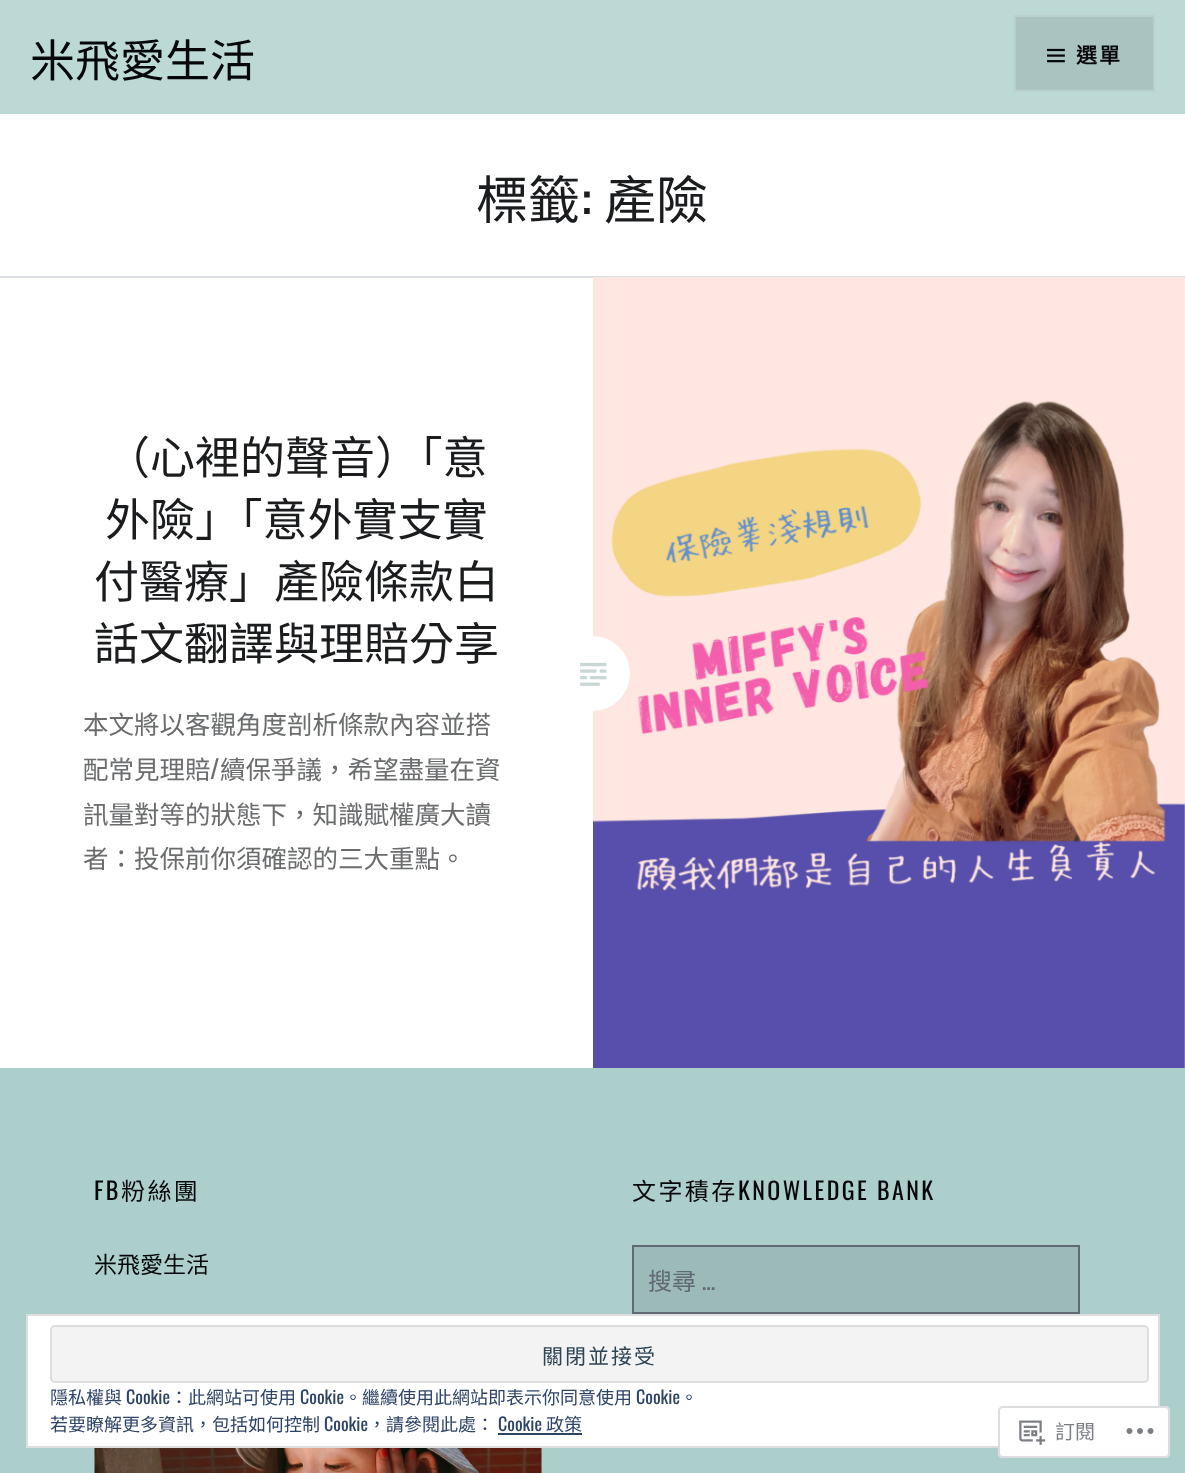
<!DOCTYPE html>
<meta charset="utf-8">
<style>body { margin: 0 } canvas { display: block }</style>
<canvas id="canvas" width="1185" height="1473"></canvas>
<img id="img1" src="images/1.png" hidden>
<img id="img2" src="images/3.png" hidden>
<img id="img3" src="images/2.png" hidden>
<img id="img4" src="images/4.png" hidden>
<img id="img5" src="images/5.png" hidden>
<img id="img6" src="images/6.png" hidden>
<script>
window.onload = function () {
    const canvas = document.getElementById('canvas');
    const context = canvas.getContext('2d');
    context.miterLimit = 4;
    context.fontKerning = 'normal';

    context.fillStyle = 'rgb(255, 255, 255)';
    context.fillRect(0, 0, 1185, 1473);
    context.fillStyle = 'rgb(189, 217, 214)';
    context.fillRect(0, 0, 1185, 114);
    context.fillStyle = 'rgb(170, 195, 193)';
    context.beginPath();
    context.rect(1015, 16, 139, 75);
    context.fill();
    context.strokeStyle = 'rgb(187, 207, 205)';
    context.lineWidth = 2;
    context.stroke();
    context.drawImage(document.getElementById('img1'), 1047, 48, 18, 15);
    context.fillStyle = 'rgb(217, 223, 229)';
    context.fillRect(0, 276, 1185, 2);
    context.drawImage(document.getElementById('img2'), 593, 277, 592, 791);
    context.fillStyle = 'rgb(255, 255, 255)';
    context.beginPath();
    context.arc(592.5, 673.5, 37.5, 0, 2 * Math.PI);
    context.fill();
    context.drawImage(document.getElementById('img3'), 580, 662, 27, 24);
    context.fillStyle = 'rgb(172, 207, 204)';
    context.fillRect(0, 1068, 1185, 405);
    context.drawImage(document.getElementById('img4'), 94, 1448, 448, 25);
    context.fillStyle = 'rgb(155, 186, 184)';
    context.beginPath();
    context.rect(633, 1246, 446, 67);
    context.fill();
    context.strokeStyle = 'rgb(97, 106, 116)';
    context.stroke();
    context.fillStyle = 'rgb(255, 255, 255)';
    context.beginPath();
    context.rect(27, 1315, 1132, 132);
    context.fill();
    context.strokeStyle = 'rgb(222, 222, 222)';
    context.stroke();
    context.fillStyle = 'rgb(243, 243, 243)';
    context.beginPath();
    context.roundRect(51, 1326, 1097, 56, 4);
    context.fill();
    context.stroke();
    context.fillStyle = 'rgb(46, 68, 103)';
    context.fillRect(498, 1433, 84, 2);
    context.fillStyle = 'rgba(255, 255, 255, 0.98)';
    context.beginPath();
    context.roundRect(998, 1406, 172, 52, 5);
    context.fill();
    context.beginPath();
    context.roundRect(999, 1407, 170, 50, 4);
    context.strokeStyle = 'rgba(220, 220, 222, 0.98)';
    context.stroke();
    context.drawImage(document.getElementById('img5'), 1019, 1420, 27, 25);
    context.drawImage(document.getElementById('img6'), 1126, 1428, 28, 6);
    context.font = '45px Noto Sans CJK TC';
    context.fillStyle = 'rgb(6, 7, 8)';
    context.fillText('米飛愛生活', 30, 77);
    context.letterSpacing = '2px';
    context.font = 'bold 21px Noto Sans CJK TC';
    context.fillText('選單', 1076, 63);
    context.letterSpacing = '0px';
    context.font = '52px Noto Sans CJK TC';
    context.fillStyle = 'rgb(26, 28, 30)';
    context.fillText('標籤', 476, 219);
    context.font = '52px Oswald';
    context.fillText(':', 581, 219);
    context.font = '52px Noto Sans CJK TC';
    context.fillText('產險', 604, 219);
    context.font = '45px Noto Sans CJK TC';
    context.fillText('（心裡的聲音）「意', 105, 474);
    context.fillText('外險」「意外實支實', 105, 536);
    context.fillText('付醫療」產險條款白', 94, 598);
    context.fillText('話文翻譯與理賠分享', 94, 660);
    context.font = '25.5px Noto Sans CJK TC';
    context.fillStyle = 'rgb(106, 108, 110)';
    context.fillText('本文將以客觀角度剖析條款內容並搭', 83, 734);
    context.fillText('配常見理賠', 83, 779);
    context.font = '25.5px Oswald';
    context.fillText('/', 210, 779);
    context.font = '25.5px Noto Sans CJK TC';
    context.fillText('續保爭議，希望盡量在資', 220, 779);
    context.fillText('訊量對等的狀態下，知識賦權廣大讀', 83, 824);
    context.fillText('者：投保前你須確認的三大重點。', 83, 868);
    context.letterSpacing = '2.4px';
    context.font = '24px Oswald';
    context.fillStyle = 'rgb(6, 7, 8)';
    context.fillText('FB', 94, 1200);
    context.font = '24px Noto Sans CJK TC';
    context.fillText('粉絲團', 121, 1200);
    context.letterSpacing = '0px';
    context.font = '23px Noto Sans CJK TC';
    context.fillText('米飛愛生活', 94, 1273);
    context.letterSpacing = '2.4px';
    context.font = '24px Noto Sans CJK TC';
    context.fillText('文字積存', 632, 1200);
    context.font = '24px Oswald';
    context.fillText('KNOWLEDGE BANK', 738, 1200);
    context.letterSpacing = '0px';
    context.font = '24px Noto Sans CJK TC';
    context.fillStyle = 'rgb(97, 106, 116)';
    context.fillText('搜尋', 648, 1290);
    context.font = '24px Oswald';
    context.fillText('…', 702, 1290);
    context.letterSpacing = '2px';
    context.font = '21px Noto Sans CJK TC';
    context.fillStyle = 'rgb(46, 68, 83)';
    context.fillText('關閉並接受', 542, 1364);
    context.letterSpacing = '0px';
    context.font = '18px Noto Sans CJK TC';
    context.fillStyle = 'rgb(46, 68, 103)';
    context.fillText('隱私權與', 50, 1404);
    context.font = '18px Oswald';
    context.fillText('Cookie', 126, 1404);
    context.font = '18px Noto Sans CJK TC';
    context.fillText('：此網站可使用', 170, 1404);
    context.font = '18px Oswald';
    context.fillText('Cookie', 300, 1404);
    context.font = '18px Noto Sans CJK TC';
    context.fillText('。繼續使用此網站即表示你同意使用', 344, 1404);
    context.font = '18px Oswald';
    context.fillText('Cookie', 636, 1404);
    context.font = '18px Noto Sans CJK TC';
    context.fillText('。', 680, 1404);
    context.fillText('若要瞭解更多資訊，包括如何控制', 50, 1431);
    context.font = '18px Oswald';
    context.fillText('Cookie', 324, 1431);
    context.font = '18px Noto Sans CJK TC';
    context.fillText('，請參閱此處：', 368, 1431);
    context.font = '18px Oswald';
    context.fillText('Cookie', 498, 1431);
    context.font = '18px Noto Sans CJK TC';
    context.fillText('政策', 546, 1431);
    context.font = '20px Noto Sans CJK TC';
    context.fillStyle = 'rgb(123, 127, 133)';
    context.fillText('訂閱', 1055, 1439);
};
</script>
